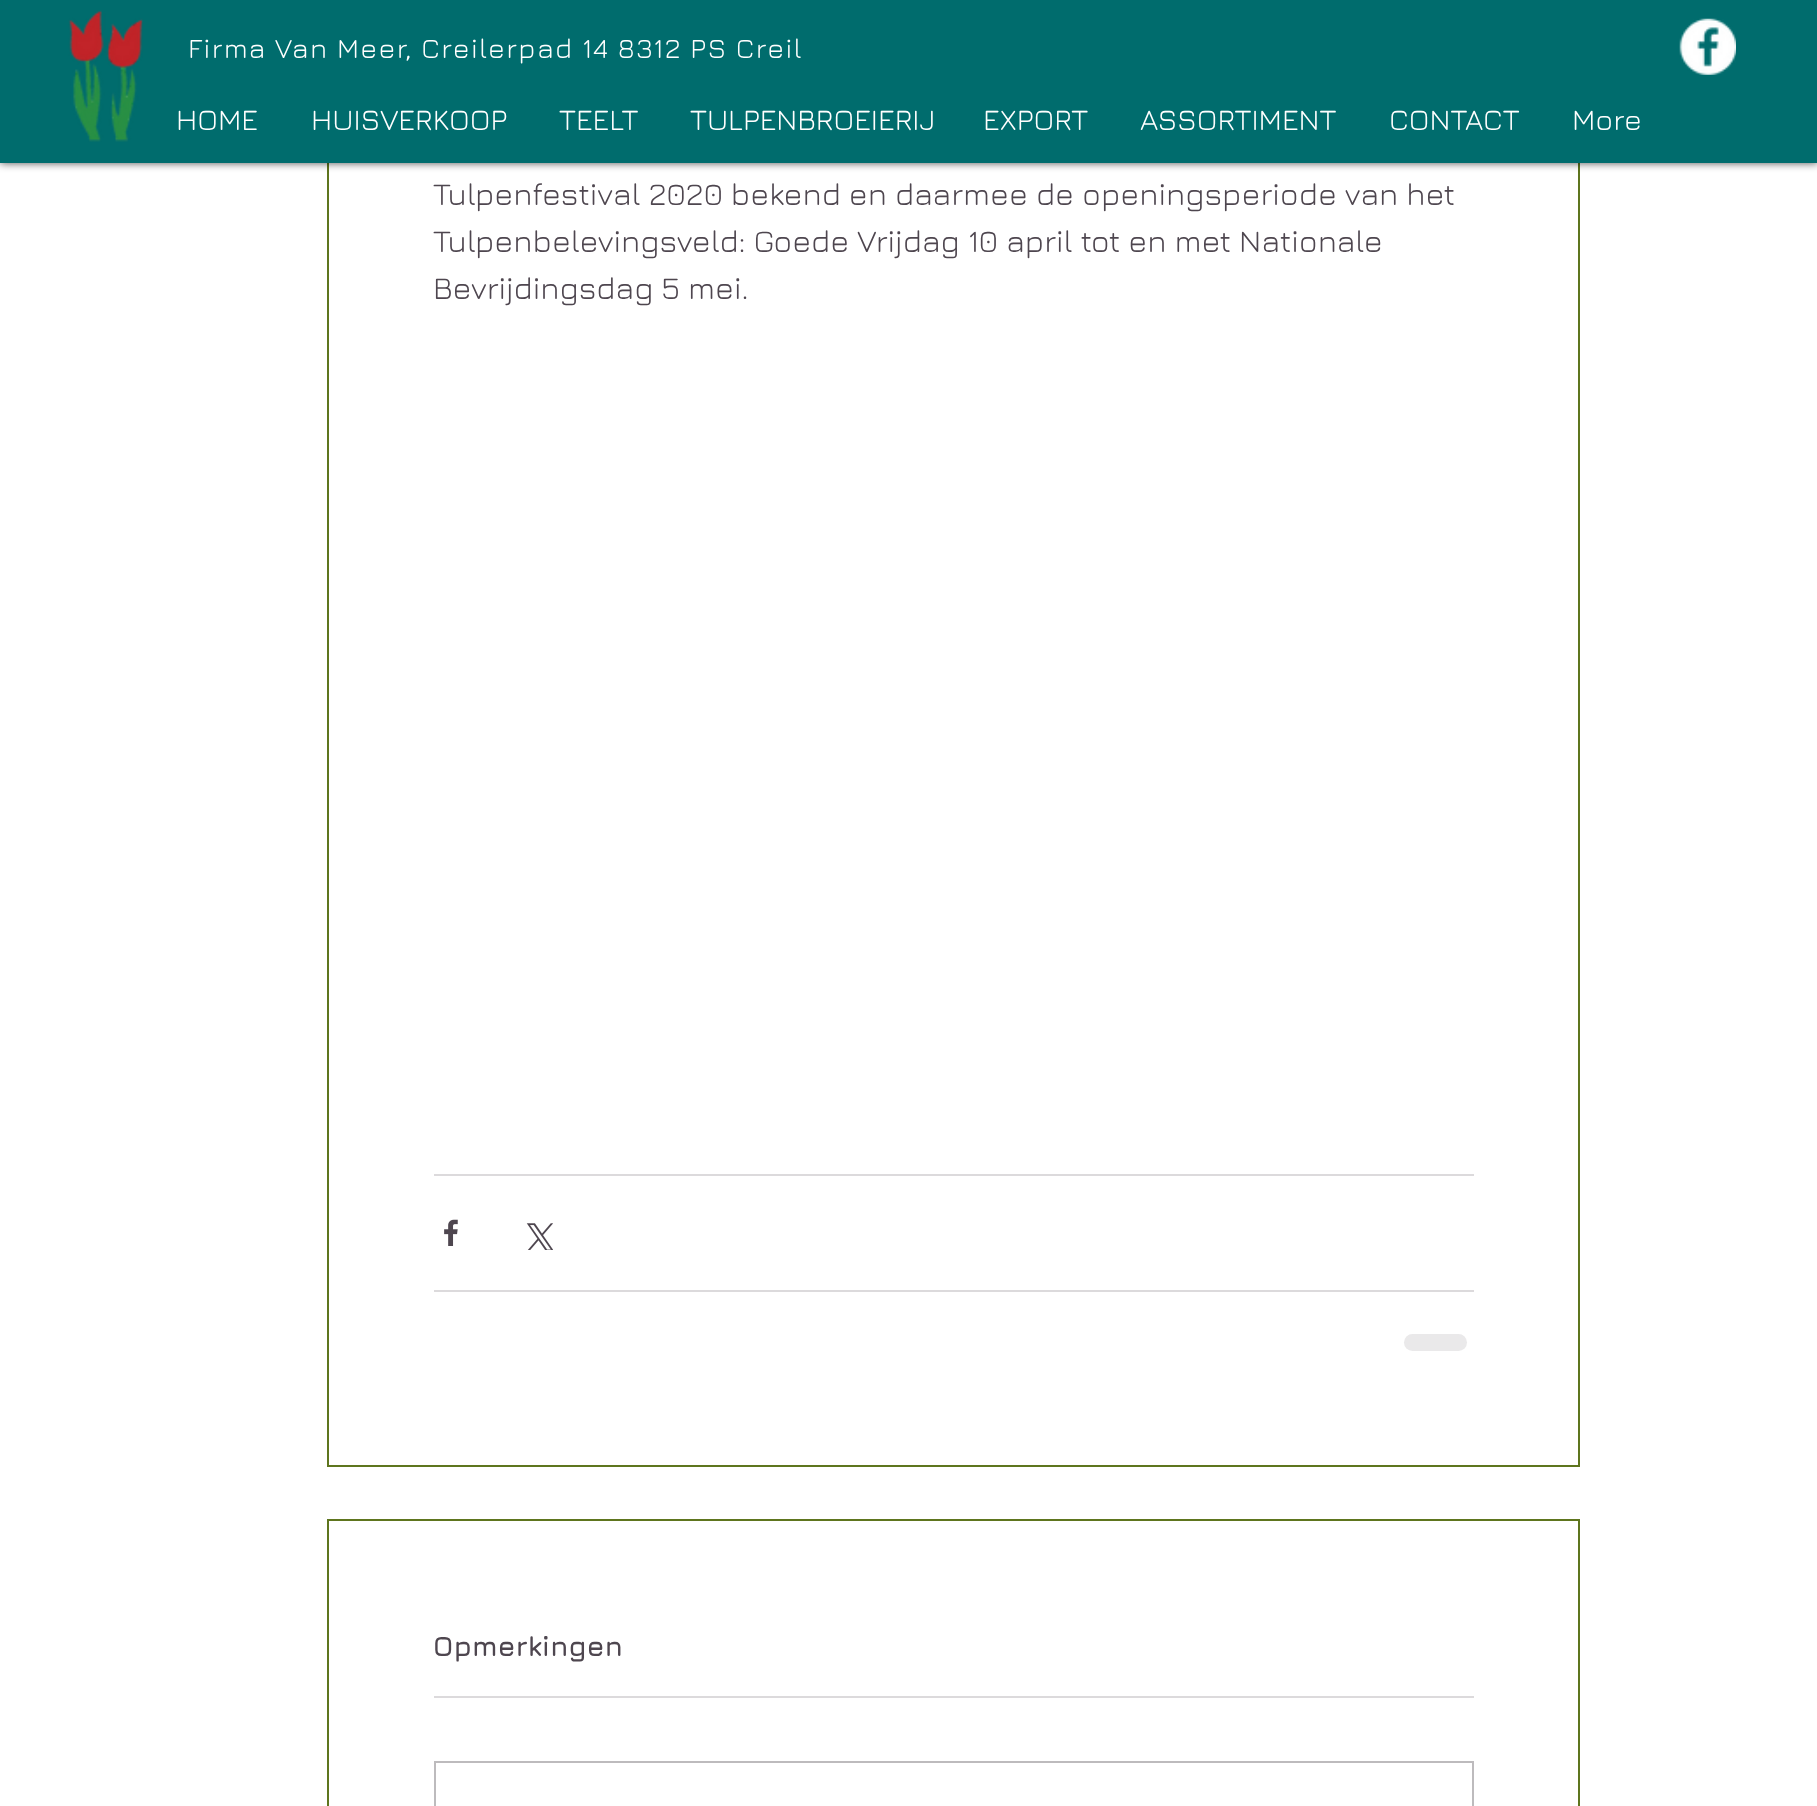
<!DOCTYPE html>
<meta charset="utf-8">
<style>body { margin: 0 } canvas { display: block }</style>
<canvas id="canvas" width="1817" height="1806"></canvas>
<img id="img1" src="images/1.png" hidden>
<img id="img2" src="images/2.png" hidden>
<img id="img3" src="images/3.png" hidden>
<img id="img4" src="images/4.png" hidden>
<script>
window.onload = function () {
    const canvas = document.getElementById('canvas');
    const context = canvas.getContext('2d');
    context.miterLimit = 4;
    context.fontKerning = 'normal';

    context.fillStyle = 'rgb(255, 255, 255)';
    context.fillRect(0, 0, 1817, 1806);
    context.strokeStyle = 'rgb(94, 117, 30)';
    context.lineWidth = 2;
    context.strokeRect(328, -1, 1251, 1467);
    context.fillStyle = 'rgba(0, 0, 0, 0.7)';
    context.filter = 'blur(4.5px)';
    context.beginPath();
    context.rect(0, 0, 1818, 163);
    context.fill();
    context.filter = 'none';
    context.fillStyle = 'rgb(0, 108, 109)';
    context.fillRect(0, 0, 1817, 163);
    context.drawImage(document.getElementById('img1'), 68, 10, 75, 132);
    context.drawImage(document.getElementById('img2'), 1679, 18, 57, 57);
    context.fillStyle = 'rgb(220, 218, 220)';
    context.fillRect(434, 1174, 1040, 2);
    context.drawImage(document.getElementById('img3'), 444, 1219, 14, 27);
    context.drawImage(document.getElementById('img4'), 526, 1223, 27, 27);
    context.fillRect(434, 1290, 1040, 2);
    context.fillStyle = 'rgb(234, 233, 234)';
    context.beginPath();
    context.roundRect(1404, 1334, 63, 17, 8.5);
    context.fill();
    context.strokeRect(328, 1520, 1251, 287);
    context.fillStyle = 'rgb(220, 218, 220)';
    context.fillRect(434, 1696, 1040, 2);
    context.strokeStyle = 'rgb(189, 187, 189)';
    context.strokeRect(435, 1762, 1038, 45);
    context.letterSpacing = '1.4px';
    context.font = '28px Jura';
    context.fillStyle = 'rgb(255, 255, 255)';
    context.fillText('Firma Van Meer, Creilerpad 14 8312 PS Creil', 188, 58);
    context.letterSpacing = '0px';
    context.font = '29.75px Jura';
    context.fillText('HOME', 176, 130);
    context.fillText('HUISVERKOOP', 311, 130);
    context.fillText('TEELT', 559, 130);
    context.fillText('TULPENBROEIERIJ', 690, 130);
    context.fillText('EXPORT', 983, 130);
    context.fillText('ASSORTIMENT', 1140, 130);
    context.fillText('CONTACT', 1389, 130);
    context.fillText('More', 1572, 130);
    context.font = '31.5px Jura';
    context.fillStyle = 'rgb(78, 70, 79)';
    context.fillText('Tulpenfestival 2020 bekend en daarmee de openingsperiode van het', 433, 205);
    context.fillText('Tulpenbelevingsveld: Goede Vrijdag 10 april tot en met Nationale', 433, 252);
    context.fillText('Bevrijdingsdag 5 mei.', 433, 299);
    context.font = 'bold 28px Jura';
    context.fillText('Opmerkingen', 433, 1656);
};
</script>
